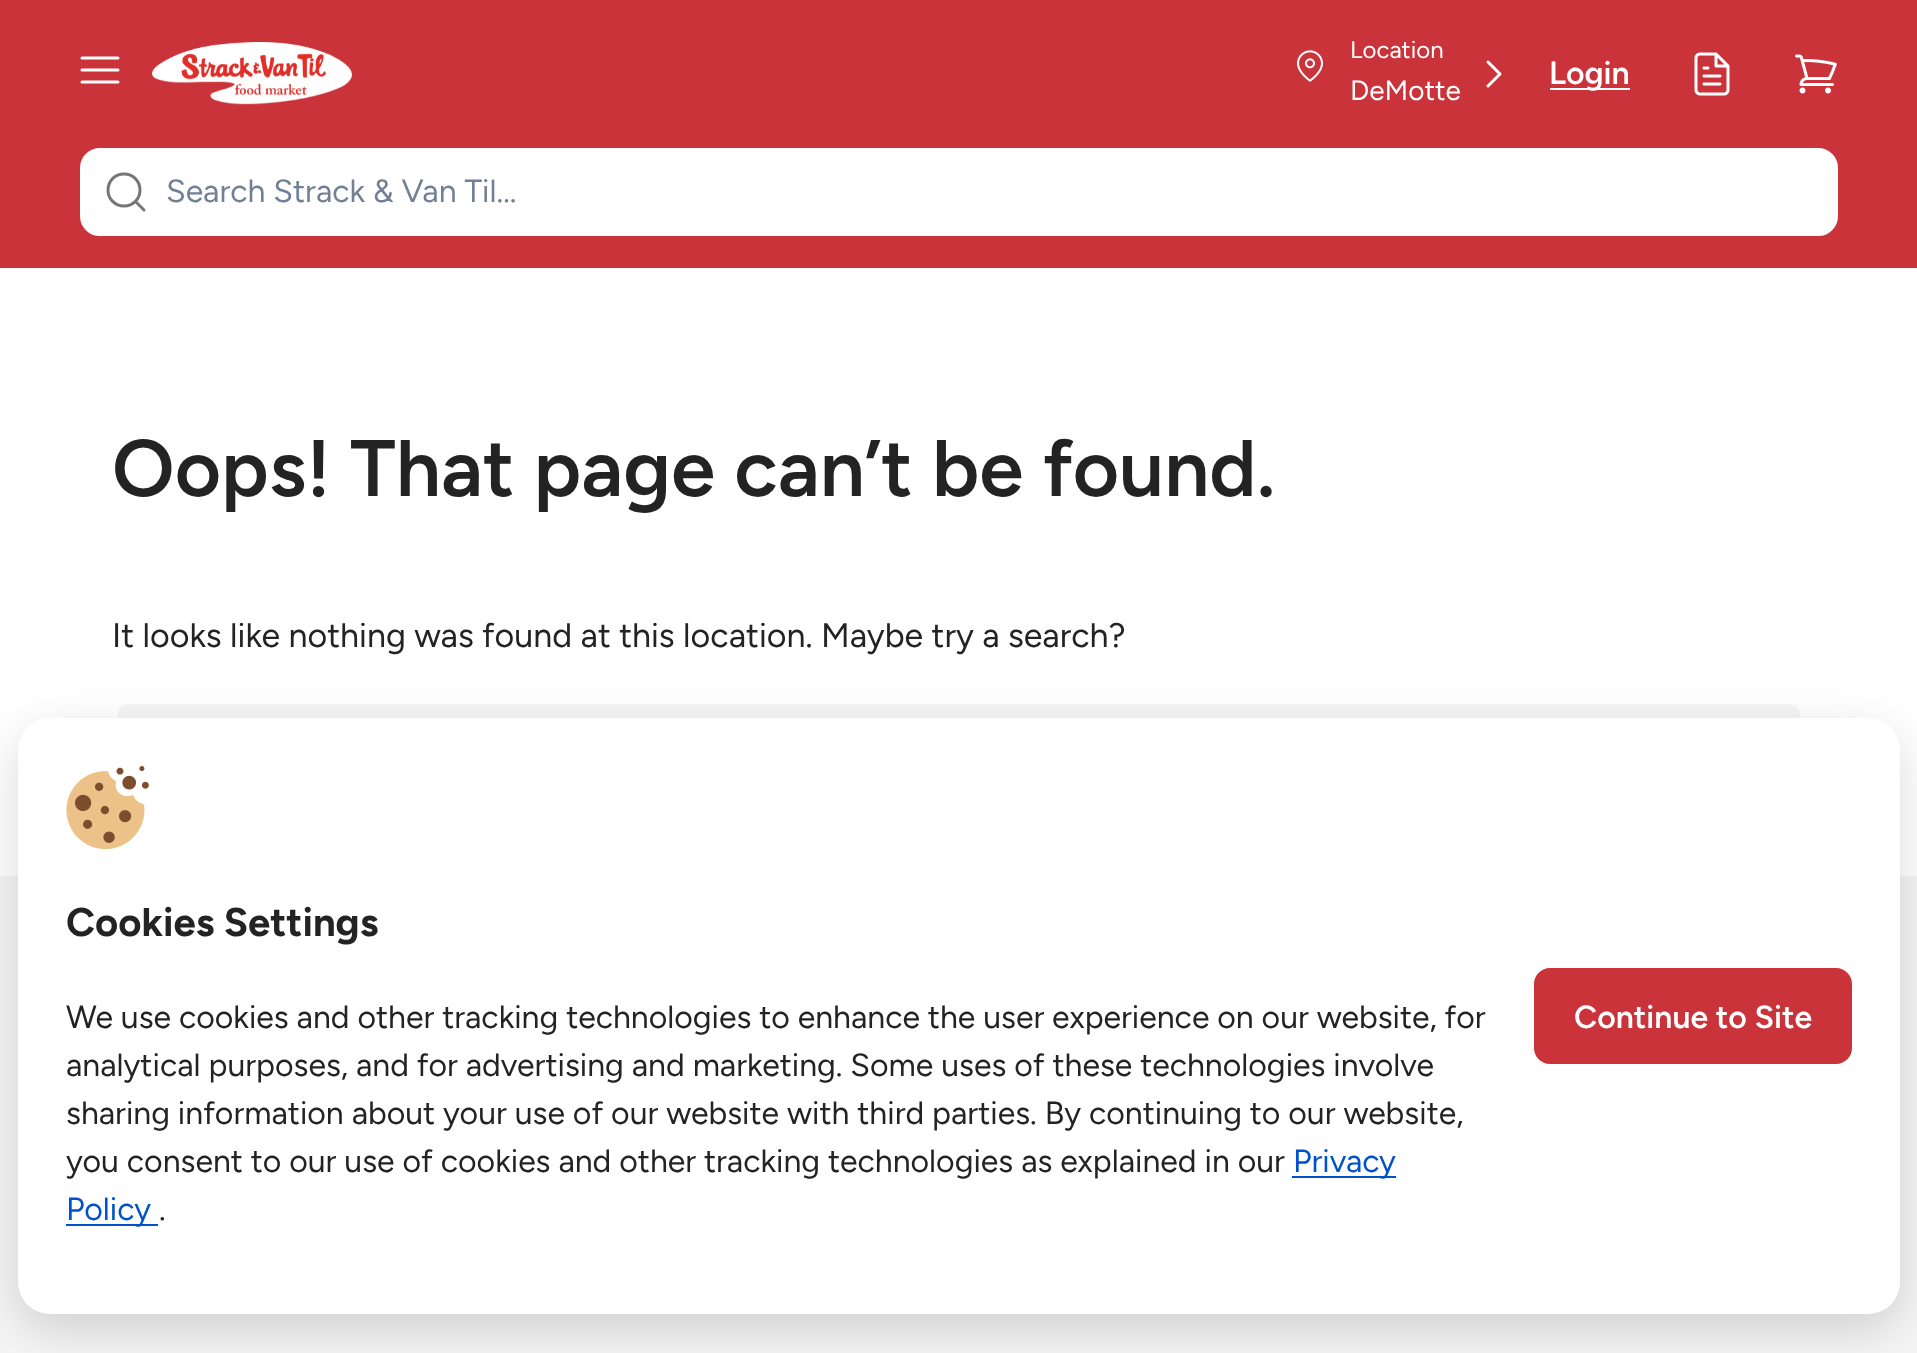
<!DOCTYPE html>
<meta charset="utf-8">
<style>body { margin: 0 } canvas { display: block }</style>
<canvas id="canvas" width="1917" height="1353"></canvas>
<img id="img1" src="images/1.png" hidden>
<img id="img2" src="images/2.png" hidden>
<img id="img3" src="images/3.png" hidden>
<img id="img4" src="images/4.png" hidden>
<img id="img5" src="images/5.png" hidden>
<script>
window.onload = function () {
    const canvas = document.getElementById('canvas');
    const context = canvas.getContext('2d');
    context.miterLimit = 4;
    context.fontKerning = 'normal';

    context.fillStyle = 'rgb(255, 255, 255)';
    context.fillRect(0, 0, 1917, 1353);
    context.fillStyle = 'rgb(203, 51, 59)';
    context.fillRect(0, 0, 1917, 268);
    context.beginPath();
    context.moveTo(118, 58);
    context.lineTo(82, 58);
    context.moveTo(118, 70);
    context.lineTo(82, 70);
    context.moveTo(118, 82);
    context.lineTo(82, 82);
    context.strokeStyle = 'rgb(255, 255, 255)';
    context.lineWidth = 3;
    context.lineCap = 'round';
    context.lineJoin = 'round';
    context.stroke();
    context.drawImage(document.getElementById('img1'), 152, 42, 200, 63);
    context.drawImage(document.getElementById('img2'), 1297, 50, 26, 32);
    context.beginPath();
    context.moveTo(1488, 86);
    context.lineTo(1500, 74);
    context.lineTo(1488, 62);
    context.stroke();
    context.fillStyle = 'rgb(255, 255, 255)';
    context.fillRect(1550, 88, 80, 2);
    context.drawImage(document.getElementById('img3'), 1694, 52, 36, 44);
    context.drawImage(document.getElementById('img4'), 1795, 54, 42, 40);
    context.beginPath();
    context.roundRect(81, 149, 1756, 86, 19);
    context.fill();
    context.lineWidth = 2;
    context.lineJoin = 'miter';
    context.stroke();
    context.beginPath();
    context.moveTo(124, 206);
    context.bezierCurveTo(133, 206, 140, 199, 140, 190);
    context.bezierCurveTo(140, 181, 133, 174, 124, 174);
    context.bezierCurveTo(115, 174, 108, 181, 108, 190);
    context.bezierCurveTo(108, 199, 115, 206, 124, 206);
    context.closePath();
    context.moveTo(144, 210);
    context.lineTo(135.5, 201.5);
    context.strokeStyle = 'rgb(118, 118, 118)';
    context.lineWidth = 3;
    context.lineJoin = 'round';
    context.stroke();
    context.fillStyle = 'rgb(245, 245, 245)';
    context.beginPath();
    context.roundRect(115, 701, 1688, 108, 13);
    context.fill();
    context.strokeStyle = 'rgb(255, 255, 255)';
    context.lineWidth = 6;
    context.lineJoin = 'miter';
    context.stroke();
    context.fillRect(0, 876, 1917, 477);
    context.fillStyle = 'rgba(0, 0, 0, 0.15)';
    context.filter = 'blur(24px)';
    context.beginPath();
    context.roundRect(18, 734, 1882, 596, 32);
    context.fill();
    context.filter = 'none';
    context.fillStyle = 'rgb(255, 255, 255)';
    context.beginPath();
    context.roundRect(18, 718, 1882, 596, 32);
    context.fill();
    context.drawImage(document.getElementById('img5'), 66, 766, 83, 84);
    context.fillStyle = 'rgb(0, 82, 204)';
    context.fillRect(1292, 1176, 104, 2);
    context.fillRect(66, 1224, 92, 2);
    context.fillStyle = 'rgb(203, 51, 59)';
    context.beginPath();
    context.roundRect(1534, 968, 318, 96, 16);
    context.fill();
    context.font = '24px Figtree';
    context.fillStyle = 'rgb(255, 255, 255)';
    context.fillText('Location', 1350, 58);
    context.font = '28px Figtree';
    context.fillText('DeMotte', 1350, 100);
    context.font = '600 32px Figtree';
    context.fillText('Login', 1549, 84);
    context.font = '32px Figtree';
    context.fillStyle = 'rgb(113, 128, 150)';
    context.fillText('Search Strack & Van Til...', 166, 202);
    context.font = '600 80px Figtree';
    context.fillStyle = 'rgb(35, 35, 35)';
    context.fillText('Oops! That page can’t be found.', 112, 496);
    context.font = '34px Figtree';
    context.fillText('It looks like nothing was found at this location. Maybe try a search?', 112, 647);
    context.font = 'bold 40px Figtree';
    context.fillText('Cookies Settings', 66, 936);
    context.font = '32px Figtree';
    context.fillText('We use cookies and other tracking technologies to enhance the user experience on our website, for', 66, 1028);
    context.fillText('analytical purposes, and for advertising and marketing. Some uses of these technologies involve', 66, 1076);
    context.fillText('sharing information about your use of our website with third parties. By continuing to our website,', 66, 1124);
    context.fillText('you consent to our use of cookies and other tracking technologies as explained in our', 66, 1172);
    context.fillStyle = 'rgb(0, 82, 204)';
    context.fillText('Privacy', 1293, 1172);
    context.fillText('Policy', 66, 1220);
    context.fillStyle = 'rgb(35, 35, 35)';
    context.fillText('.', 159, 1220);
    context.font = '600 32px Figtree';
    context.fillStyle = 'rgb(255, 255, 255)';
    context.fillText('Continue to Site', 1574, 1028);
};
</script>
